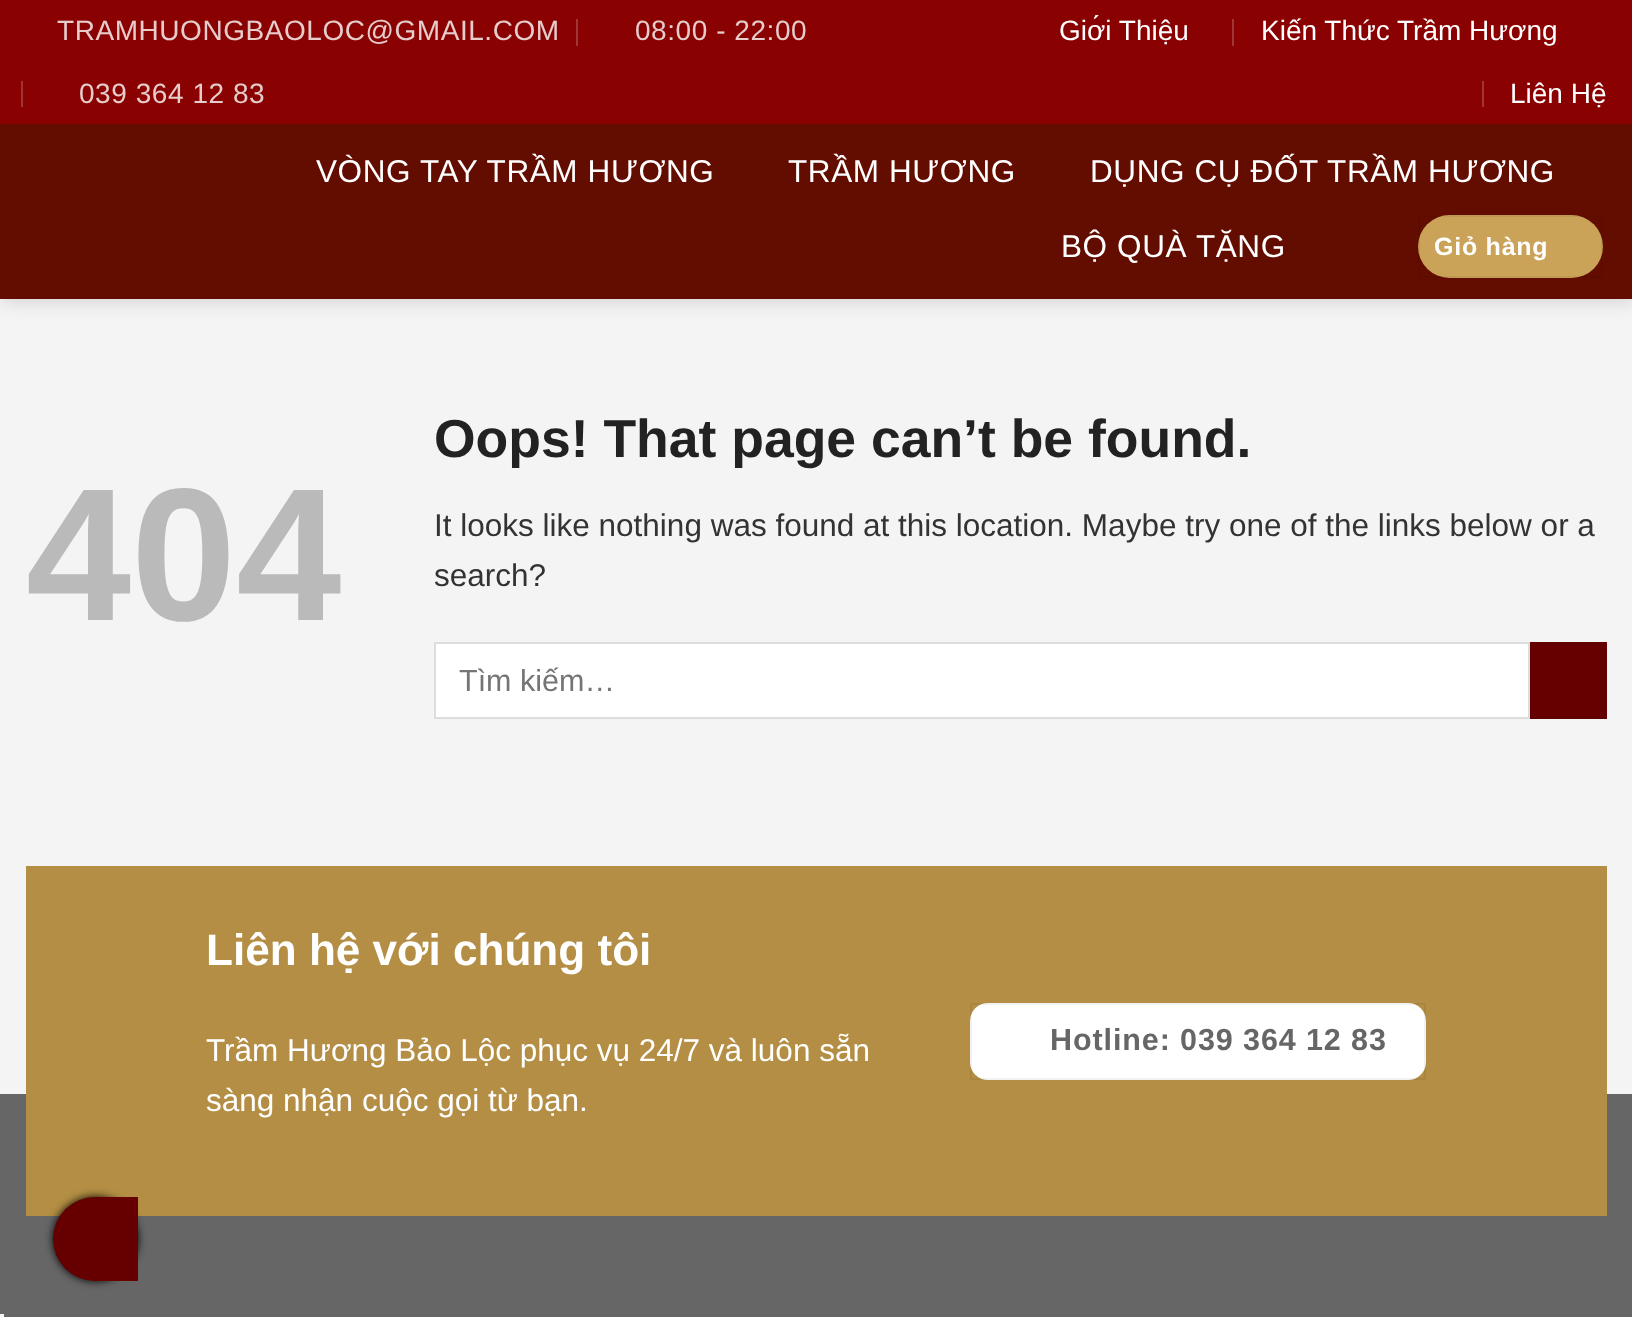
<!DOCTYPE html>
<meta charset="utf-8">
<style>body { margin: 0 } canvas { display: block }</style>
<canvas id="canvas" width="1632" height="1317"></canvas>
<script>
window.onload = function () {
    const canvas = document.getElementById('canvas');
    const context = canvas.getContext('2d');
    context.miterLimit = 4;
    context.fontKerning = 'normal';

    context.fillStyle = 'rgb(244, 244, 244)';
    context.fillRect(0, 0, 1632, 1317);
    context.fillStyle = 'rgba(0, 0, 0, 0.15)';
    context.filter = 'blur(9px)';
    context.beginPath();
    context.rect(2, 2, 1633, 299);
    context.fill();
    context.filter = 'none';
    context.fillStyle = 'rgb(99, 13, 0)';
    context.fillRect(0, 124, 1632, 175);
    context.fillStyle = 'rgb(137, 1, 1)';
    context.fillRect(0, 0, 1632, 124);
    context.fillStyle = 'rgb(161, 52, 52)';
    context.fillRect(576, 19, 2, 27);
    context.fillRect(21, 81, 2, 26);
    context.fillRect(1232, 19, 2, 27);
    context.fillRect(1482, 81, 2, 26);
    context.fillStyle = 'rgb(202, 163, 88)';
    context.beginPath();
    context.roundRect(1418, 215, 185, 63, 31.5);
    context.fill();
    context.strokeStyle = 'rgba(0, 0, 0, 0.05)';
    context.lineWidth = 2;
    context.strokeRect(1419, 216, 183, 61);
    context.fillStyle = 'rgb(255, 255, 255)';
    context.beginPath();
    context.rect(435, 643, 1094, 75);
    context.fill();
    context.strokeStyle = 'rgb(221, 221, 221)';
    context.stroke();
    context.fillStyle = 'rgb(102, 0, 0)';
    context.beginPath();
    context.rect(1531, 643, 75, 75);
    context.fill();
    context.strokeStyle = 'rgb(97, 0, 0)';
    context.stroke();
    context.fillStyle = 'rgb(102, 102, 102)';
    context.fillRect(0, 1094, 1632, 223);
    context.fillStyle = 'rgb(179, 142, 68)';
    context.fillRect(26, 866, 1581, 350);
    context.fillStyle = 'rgb(255, 255, 255)';
    context.beginPath();
    context.roundRect(970, 1003, 456, 77, 18);
    context.fill();
    context.strokeStyle = 'rgba(0, 0, 0, 0.05)';
    context.strokeRect(971, 1004, 454, 75);
    context.fillStyle = 'rgb(0, 0, 0)';
    context.filter = 'blur(4.5px)';
    context.beginPath();
    context.roundRect(53, 1197, 85, 84, 42);
    context.fill();
    context.filter = 'none';
    context.fillStyle = 'rgb(102, 0, 0)';
    context.beginPath();
    context.roundRect(53, 1197, 85, 84, [42, 0, 0, 42]);
    context.fill();
    context.fillStyle = 'rgb(245, 245, 245)';
    context.fillRect(0, 1314, 4, 3);
    context.letterSpacing = '0.55px';
    context.font = '28px Liberation Sans';
    context.fillStyle = 'rgb(231, 204, 204)';
    context.fillText('TRAMHUONGBAOLOC@GMAIL.COM', 57, 40);
    context.fillText('08:00 - 22:00', 635, 40);
    context.fillText('039 364 12 83', 79, 103);
    context.letterSpacing = '0px';
    context.fillStyle = 'rgb(255, 255, 255)';
    context.fillText('Giới Thiệu', 1059, 40);
    context.fillText('Kiến Thức Trầm Hương', 1261, 40);
    context.fillText('Liên Hệ', 1510, 103);
    context.letterSpacing = '0.6px';
    context.font = '31.5px Liberation Sans';
    context.fillText('VÒNG TAY TRẦM HƯƠNG', 316, 182);
    context.fillText('TRẦM HƯƠNG', 788, 182);
    context.fillText('DỤNG CỤ ĐỐT TRẦM HƯƠNG', 1090, 182);
    context.fillText('BỘ QUÀ TẶNG', 1061, 257);
    context.letterSpacing = '0.75px';
    context.font = 'bold 25px Liberation Sans';
    context.fillText('Giỏ hàng', 1434, 255);
    context.letterSpacing = '0px';
    context.font = 'bold 189px Liberation Sans';
    context.fillStyle = 'rgb(186, 186, 186)';
    context.fillText('404', 26, 620);
    context.font = 'bold 53.5px Liberation Sans';
    context.fillStyle = 'rgb(34, 34, 34)';
    context.fillText('Oops! That page can’t be found.', 434, 457);
    context.font = '31.5px Liberation Sans';
    context.fillStyle = 'rgb(51, 51, 51)';
    context.fillText('It looks like nothing was found at this location. Maybe try one of the links below or a', 434, 536);
    context.fillText('search?', 434, 586);
    context.font = '30.5px Liberation Sans';
    context.fillStyle = 'rgb(117, 117, 117)';
    context.fillText('Tìm kiếm…', 459, 691);
    context.font = 'bold 44.1px Liberation Sans';
    context.fillStyle = 'rgb(255, 255, 255)';
    context.fillText('Liên hệ với chúng tôi', 206, 965);
    context.font = '31.5px Liberation Sans';
    context.fillText('Trầm Hương Bảo Lộc phục vụ 24/7 và luôn sẵn', 206, 1061);
    context.fillText('sàng nhận cuộc gọi từ bạn.', 206, 1111);
    context.letterSpacing = '0.9px';
    context.font = 'bold 30.5px Liberation Sans';
    context.fillStyle = 'rgb(102, 102, 102)';
    context.fillText('Hotline: 039 364 12 83', 1050, 1050);
};
</script>
